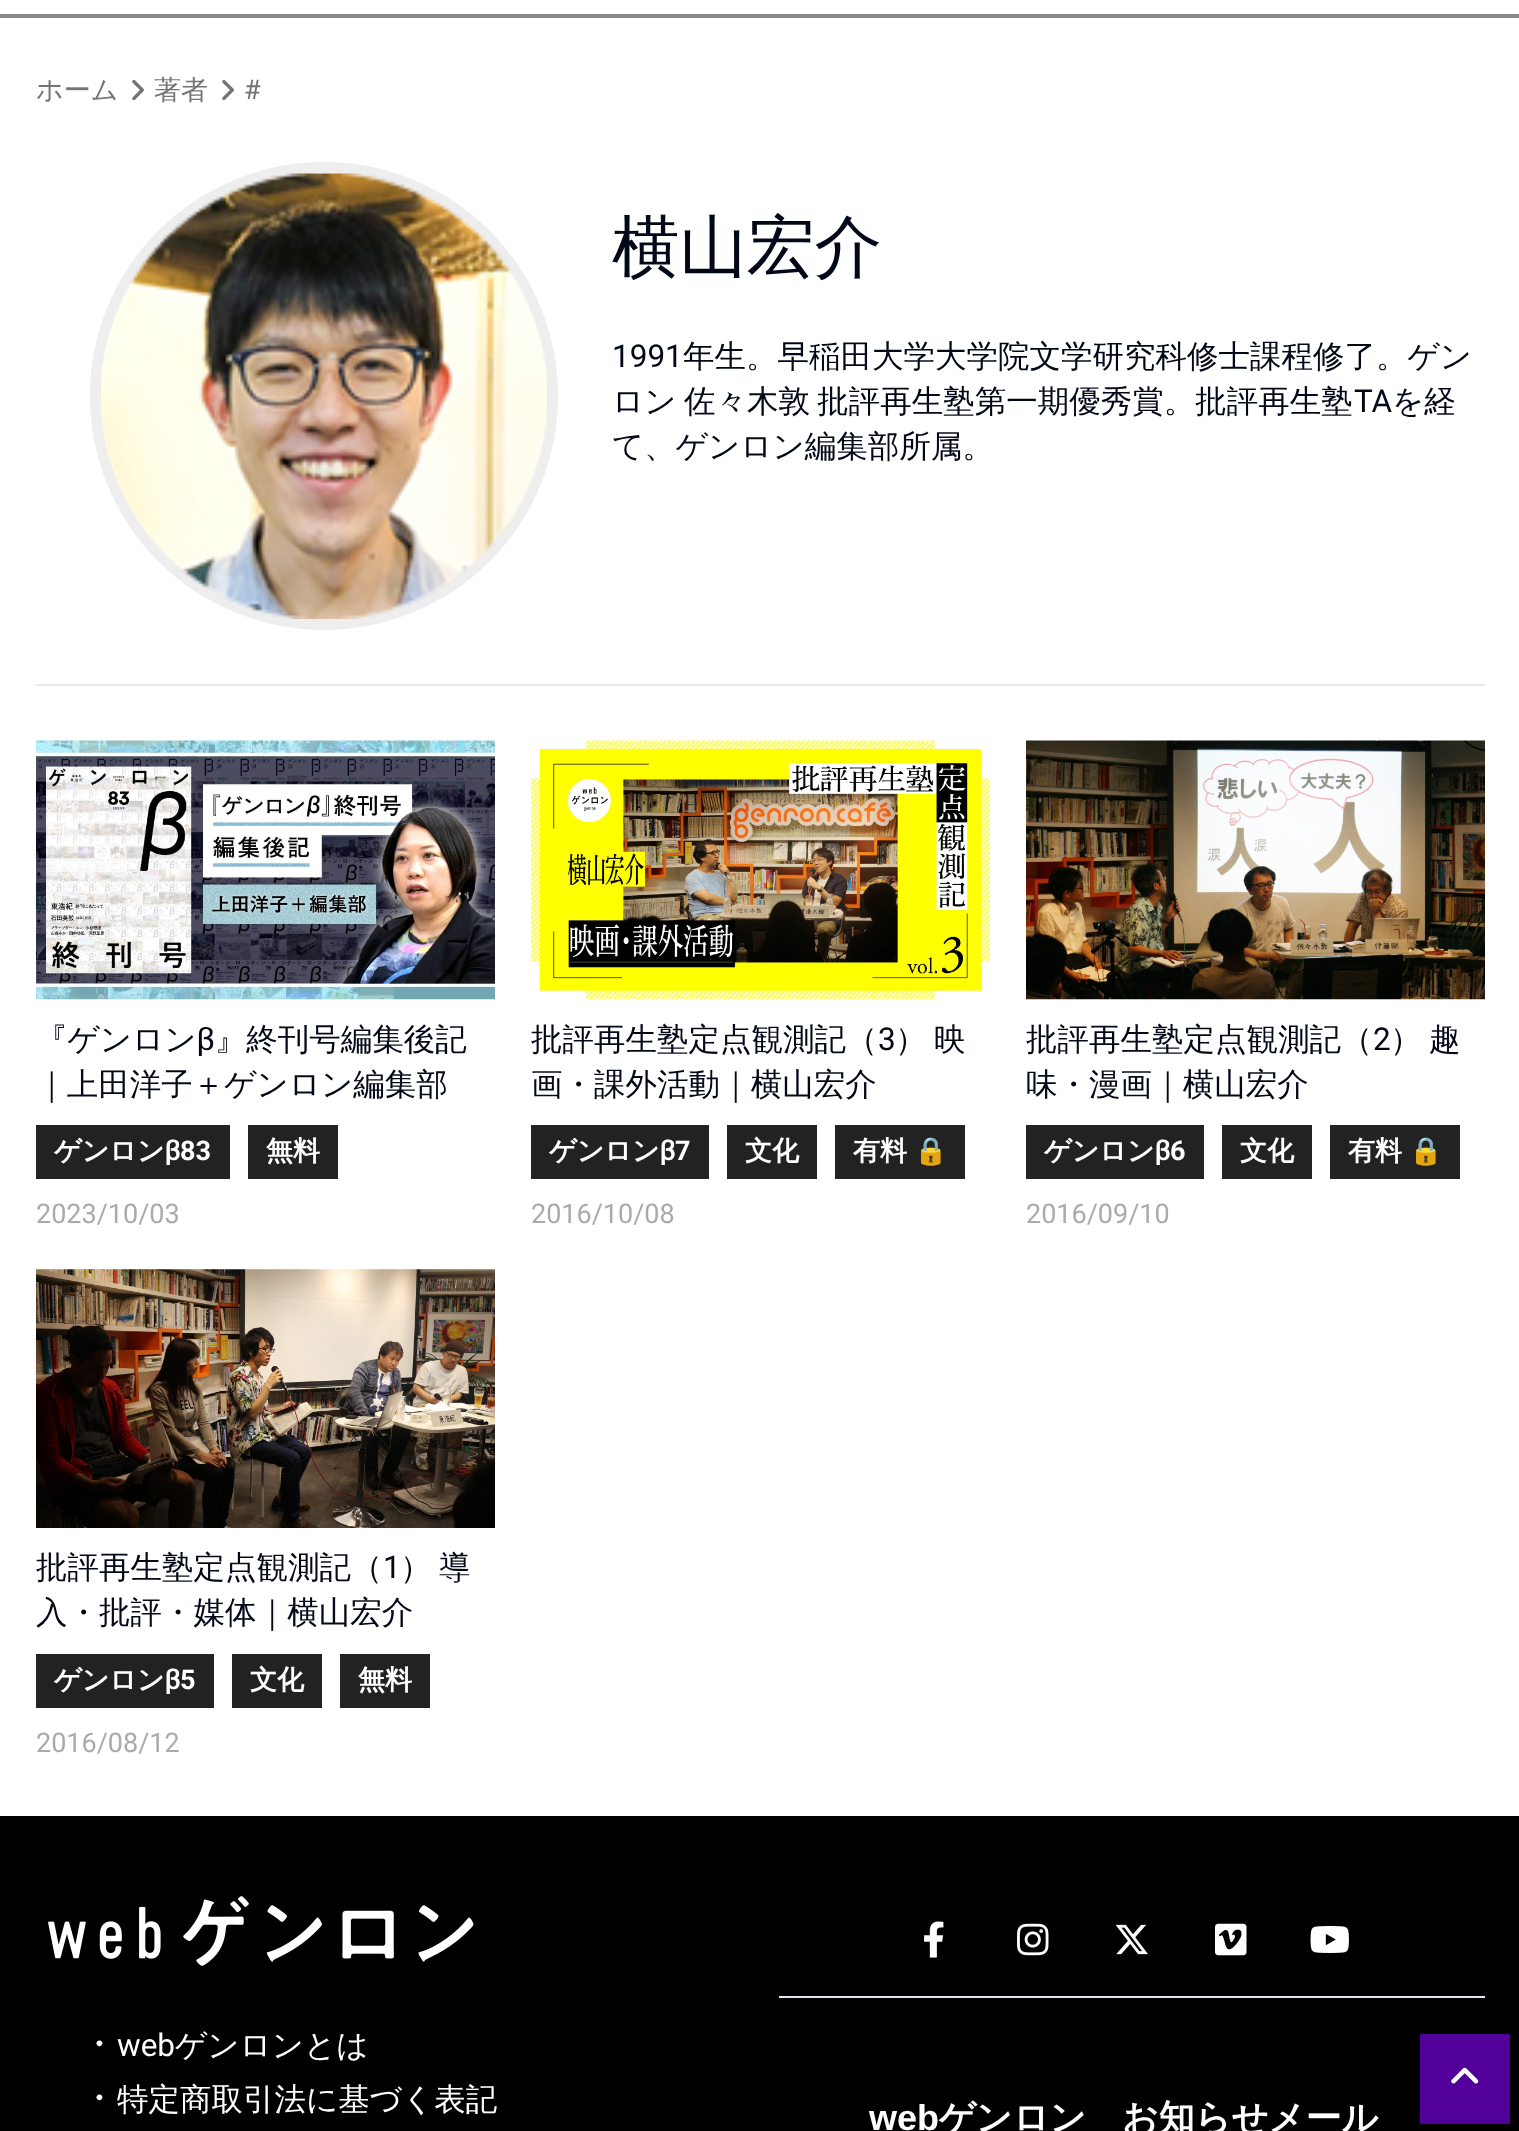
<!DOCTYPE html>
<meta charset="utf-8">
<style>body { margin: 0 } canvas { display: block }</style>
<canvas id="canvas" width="1519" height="2131"></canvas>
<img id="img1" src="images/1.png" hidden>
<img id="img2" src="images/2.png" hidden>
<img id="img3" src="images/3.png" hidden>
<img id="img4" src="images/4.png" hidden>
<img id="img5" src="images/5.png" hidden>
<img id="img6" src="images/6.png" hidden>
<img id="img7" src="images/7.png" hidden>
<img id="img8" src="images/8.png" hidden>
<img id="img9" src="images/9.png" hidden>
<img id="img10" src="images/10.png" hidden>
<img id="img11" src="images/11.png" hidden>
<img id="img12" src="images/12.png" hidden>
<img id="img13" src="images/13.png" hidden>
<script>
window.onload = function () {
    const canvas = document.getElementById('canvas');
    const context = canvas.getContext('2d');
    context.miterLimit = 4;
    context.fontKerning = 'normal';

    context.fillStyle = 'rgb(255, 255, 255)';
    context.fillRect(0, 0, 1519, 2131);
    context.fillStyle = 'rgb(136, 136, 136)';
    context.fillRect(0, 14, 1519, 4);
    context.drawImage(document.getElementById('img1'), 132, 79, 12, 22);
    context.drawImage(document.getElementById('img1'), 222, 79, 12, 22);
    context.beginPath();
    context.arc(324, 396, 228.5, 0, 2 * Math.PI);
    context.strokeStyle = 'rgb(238, 238, 238)';
    context.lineWidth = 11;
    context.stroke();
    context.drawImage(document.getElementById('img2'), 101, 173, 446, 446);
    context.fillStyle = 'rgb(229, 231, 235)';
    context.fillRect(36, 684, 1449, 2);
    context.drawImage(document.getElementById('img3'), 36, 740, 459, 260);
    context.fillStyle = 'rgb(34, 34, 34)';
    context.fillRect(36, 1125, 194, 54);
    context.fillRect(248, 1125, 90, 54);
    context.drawImage(document.getElementById('img4'), 531, 740, 459, 260);
    context.fillRect(531, 1125, 178, 54);
    context.fillRect(727, 1125, 90, 54);
    context.fillRect(835, 1125, 130, 54);
    context.drawImage(document.getElementById('img5'), 1026, 740, 459, 260);
    context.fillRect(1026, 1125, 178, 54);
    context.fillRect(1222, 1125, 90, 54);
    context.fillRect(1330, 1125, 130, 54);
    context.drawImage(document.getElementById('img6'), 36, 1269, 459, 259);
    context.fillRect(36, 1654, 178, 54);
    context.fillRect(232, 1654, 90, 54);
    context.fillRect(340, 1654, 90, 54);
    context.fillStyle = 'rgb(0, 0, 0)';
    context.fillRect(0, 1816, 1519, 315);
    context.drawImage(document.getElementById('img7'), 48, 1896, 426, 70);
    context.drawImage(document.getElementById('img8'), 924, 1921, 20, 37);
    context.drawImage(document.getElementById('img9'), 1017, 1923, 32, 33);
    context.drawImage(document.getElementById('img10'), 1115, 1924, 33, 31);
    context.drawImage(document.getElementById('img11'), 1215, 1923, 32, 33);
    context.drawImage(document.getElementById('img12'), 1310, 1926, 39, 27);
    context.fillStyle = 'rgb(226, 232, 240)';
    context.fillRect(779, 1996, 706, 2);
    context.fillStyle = 'rgb(81, 0, 153)';
    context.fillRect(1420, 2034, 90, 90);
    context.drawImage(document.getElementById('img13'), 1451, 2067, 28, 17);
    context.font = '500 27px WenQuanYi Zen Hei';
    context.fillStyle = 'rgb(116, 116, 116)';
    context.fillText('ホーム', 36, 99);
    context.fillText('著者', 154, 99);
    context.font = '27px Roboto';
    context.fillText('#', 244, 99);
    context.font = '500 67.5px WenQuanYi Zen Hei';
    context.fillStyle = 'rgb(2, 8, 23)';
    context.fillText('横山宏介', 612, 270);
    context.font = '31.5px Roboto';
    context.fillText('1991', 612, 367);
    context.font = '500 31.5px WenQuanYi Zen Hei';
    context.fillText('年生。早稲田大学大学院文学研究科修士課程修了。ゲン', 683, 367);
    context.wordSpacing = '-2px';
    context.fillText('ロン 佐々木敦 批評再生塾第一期優秀賞。批評再生塾', 612, 412);
    context.wordSpacing = '0px';
    context.font = '31.5px Roboto';
    context.fillText('TA', 1354, 412);
    context.font = '500 31.5px WenQuanYi Zen Hei';
    context.fillText('を経', 1392, 412);
    context.fillText('て、ゲンロン編集部所属。', 612, 457);
    context.fillText('『ゲンロンβ』終刊号編集後記', 36, 1050);
    context.fillText('｜上田洋子＋ゲンロン編集部', 36, 1095);
    context.font = 'bold 27px WenQuanYi Zen Hei';
    context.fillStyle = 'rgb(255, 255, 255)';
    context.fillText('ゲンロンβ', 54, 1160);
    context.font = 'bold 27px Roboto';
    context.fillText('83', 180, 1160);
    context.font = 'bold 27px WenQuanYi Zen Hei';
    context.fillText('無料', 266, 1160);
    context.font = '27px Roboto';
    context.fillStyle = 'rgb(170, 170, 170)';
    context.fillText('2023/10/03', 36, 1223);
    context.font = '500 31.5px WenQuanYi Zen Hei';
    context.fillStyle = 'rgb(2, 8, 23)';
    context.fillText('批評再生塾定点観測記（', 531, 1050);
    context.font = '31.5px Roboto';
    context.fillText('3', 878, 1050);
    context.wordSpacing = '-2px';
    context.font = '500 31.5px WenQuanYi Zen Hei';
    context.fillText('） 映', 895, 1050);
    context.wordSpacing = '0px';
    context.fillText('画・課外活動｜横山宏介', 531, 1095);
    context.font = 'bold 27px WenQuanYi Zen Hei';
    context.fillStyle = 'rgb(255, 255, 255)';
    context.fillText('ゲンロンβ', 549, 1160);
    context.font = 'bold 27px Roboto';
    context.fillText('7', 675, 1160);
    context.font = 'bold 27px WenQuanYi Zen Hei';
    context.fillText('文化', 745, 1160);
    context.fillText('有料', 853, 1160);
    context.font = 'bold 27px Noto Color Emoji';
    context.fillText('🔒', 914, 1160);
    context.font = '27px Roboto';
    context.fillStyle = 'rgb(170, 170, 170)';
    context.fillText('2016/10/08', 531, 1223);
    context.font = '500 31.5px WenQuanYi Zen Hei';
    context.fillStyle = 'rgb(2, 8, 23)';
    context.fillText('批評再生塾定点観測記（', 1026, 1050);
    context.font = '31.5px Roboto';
    context.fillText('2', 1373, 1050);
    context.wordSpacing = '-2px';
    context.font = '500 31.5px WenQuanYi Zen Hei';
    context.fillText('） 趣', 1390, 1050);
    context.wordSpacing = '0px';
    context.fillText('味・漫画｜横山宏介', 1026, 1095);
    context.font = 'bold 27px WenQuanYi Zen Hei';
    context.fillStyle = 'rgb(255, 255, 255)';
    context.fillText('ゲンロンβ', 1044, 1160);
    context.font = 'bold 27px Roboto';
    context.fillText('6', 1170, 1160);
    context.font = 'bold 27px WenQuanYi Zen Hei';
    context.fillText('文化', 1240, 1160);
    context.fillText('有料', 1348, 1160);
    context.font = 'bold 27px Noto Color Emoji';
    context.fillText('🔒', 1409, 1160);
    context.font = '27px Roboto';
    context.fillStyle = 'rgb(170, 170, 170)';
    context.fillText('2016/09/10', 1026, 1223);
    context.font = '500 31.5px WenQuanYi Zen Hei';
    context.fillStyle = 'rgb(2, 8, 23)';
    context.fillText('批評再生塾定点観測記（', 36, 1578);
    context.font = '31.5px Roboto';
    context.fillText('1', 383, 1578);
    context.wordSpacing = '-2px';
    context.font = '500 31.5px WenQuanYi Zen Hei';
    context.fillText('） 導', 400, 1578);
    context.wordSpacing = '0px';
    context.fillText('入・批評・媒体｜横山宏介', 36, 1623);
    context.font = 'bold 27px WenQuanYi Zen Hei';
    context.fillStyle = 'rgb(255, 255, 255)';
    context.fillText('ゲンロンβ', 54, 1689);
    context.font = 'bold 27px Roboto';
    context.fillText('5', 180, 1689);
    context.font = 'bold 27px WenQuanYi Zen Hei';
    context.fillText('文化', 250, 1689);
    context.fillText('無料', 358, 1689);
    context.font = '27px Roboto';
    context.fillStyle = 'rgb(170, 170, 170)';
    context.fillText('2016/08/12', 36, 1752);
    context.font = '500 36px WenQuanYi Zen Hei';
    context.fillStyle = 'rgb(255, 255, 255)';
    context.fillText('・', 81, 2056);
    context.font = '31.5px Roboto';
    context.fillText('web', 117, 2056);
    context.font = '500 31.5px WenQuanYi Zen Hei';
    context.fillText('ゲンロンとは', 175, 2056);
    context.font = '500 36px WenQuanYi Zen Hei';
    context.fillText('・', 81, 2110);
    context.font = '500 31.5px WenQuanYi Zen Hei';
    context.fillText('特定商取引法に基づく表記', 117, 2110);
    context.font = 'bold 36px Liberation Sans';
    context.fillText('web', 869, 2130);
    context.font = 'bold 36px WenQuanYi Zen Hei';
    context.fillText('ゲンロン', 939, 2130);
    context.fillText('お知らせメール', 1122, 2130);
};
</script>
